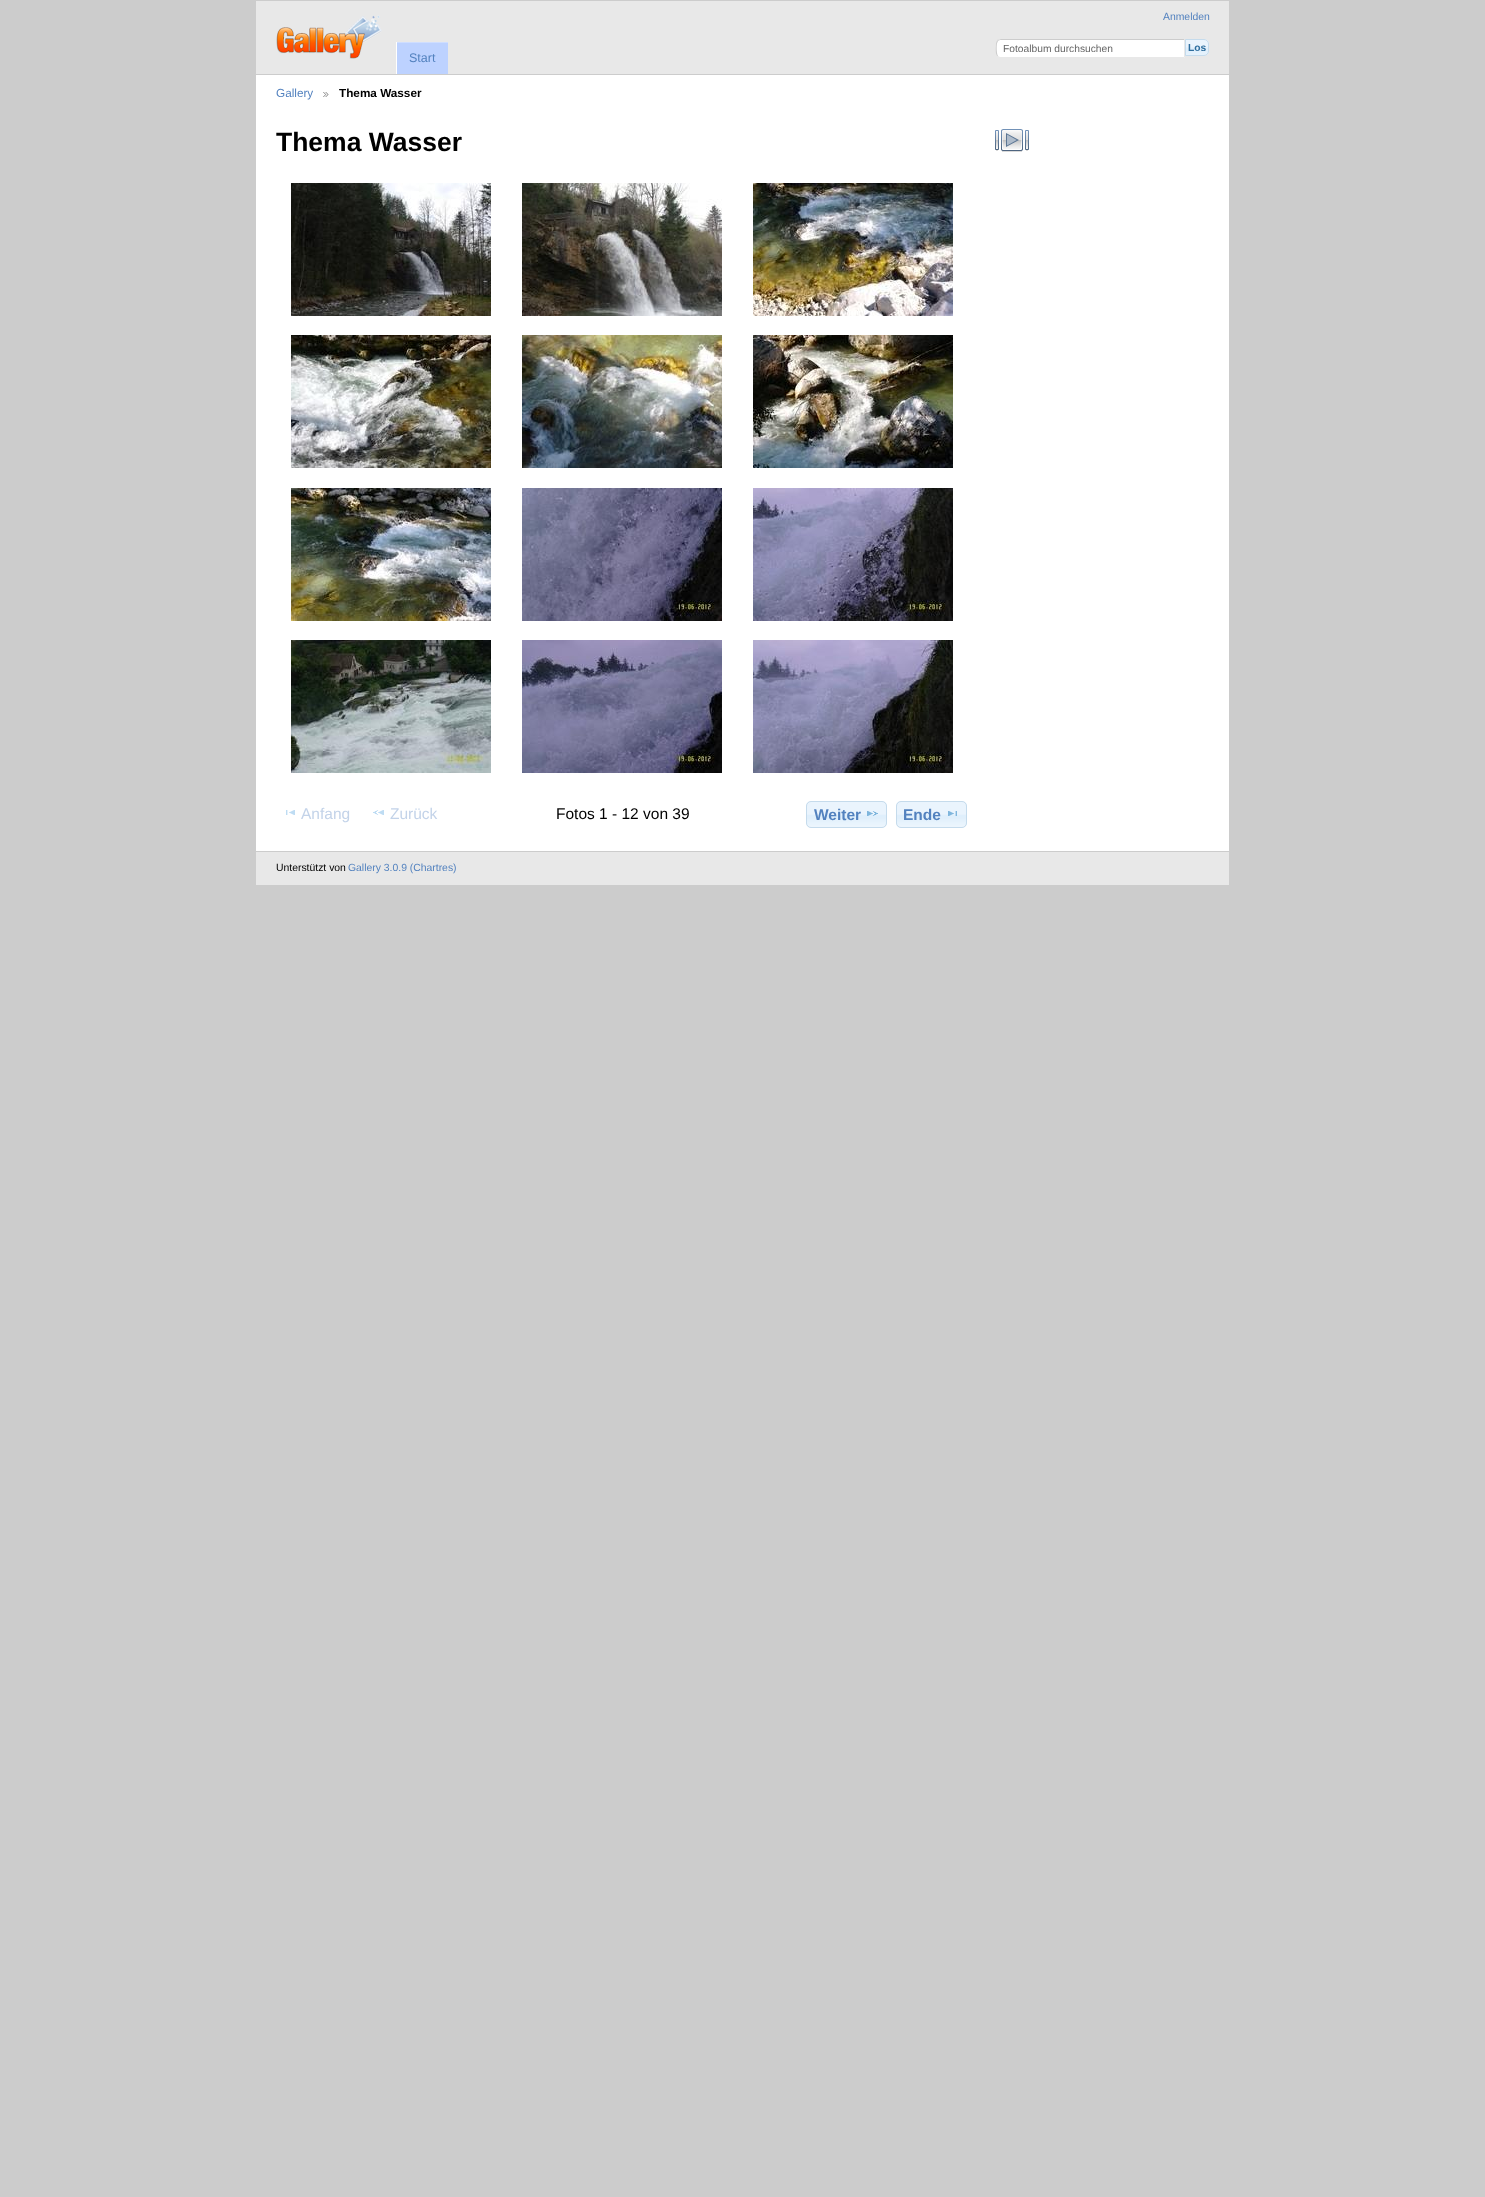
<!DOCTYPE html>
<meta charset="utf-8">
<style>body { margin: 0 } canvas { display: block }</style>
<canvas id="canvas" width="1485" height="2197"></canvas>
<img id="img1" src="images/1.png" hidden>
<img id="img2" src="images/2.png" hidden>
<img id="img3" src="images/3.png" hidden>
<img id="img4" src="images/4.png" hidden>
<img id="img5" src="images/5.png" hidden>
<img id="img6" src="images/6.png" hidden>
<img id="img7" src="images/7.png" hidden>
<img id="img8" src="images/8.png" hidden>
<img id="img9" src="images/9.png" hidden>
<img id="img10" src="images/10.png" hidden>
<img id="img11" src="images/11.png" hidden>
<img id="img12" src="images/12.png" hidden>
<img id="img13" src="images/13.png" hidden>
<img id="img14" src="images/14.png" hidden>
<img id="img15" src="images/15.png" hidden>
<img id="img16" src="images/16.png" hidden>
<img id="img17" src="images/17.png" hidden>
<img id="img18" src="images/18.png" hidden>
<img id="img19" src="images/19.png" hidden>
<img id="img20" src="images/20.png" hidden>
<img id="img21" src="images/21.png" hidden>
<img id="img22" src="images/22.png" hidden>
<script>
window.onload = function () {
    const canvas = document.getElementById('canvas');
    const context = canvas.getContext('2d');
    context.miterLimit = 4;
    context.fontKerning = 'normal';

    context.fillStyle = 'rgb(204, 204, 204)';
    context.fillRect(0, 0, 1485, 2197);
    context.fillStyle = 'rgb(255, 255, 255)';
    context.fillRect(256, 75, 973, 776);
    context.fillStyle = 'rgb(232, 232, 232)';
    context.fillRect(256, 1, 973, 73);
    context.drawImage(document.getElementById('img1'), 276, 15, 106, 44);
    context.fillStyle = 'rgb(255, 255, 255)';
    context.beginPath();
    context.roundRect(996, 39, 189, 19, [5, 0, 0, 5]);
    context.fill();
    context.fillStyle = 'rgb(204, 204, 204)';
    context.beginPath();
    context.moveTo(1001, 39);
    context.bezierCurveTo(1000, 39, 998, 40, 997, 40);
    context.lineTo(998, 41);
    context.bezierCurveTo(999, 40, 1000, 40, 1001, 40);
    context.lineTo(1184, 40);
    context.lineTo(1185, 39);
    context.closePath();
    context.fill();
    context.fillStyle = 'rgb(232, 232, 232)';
    context.beginPath();
    context.moveTo(1185, 39);
    context.lineTo(1184, 40);
    context.lineTo(1184, 57);
    context.lineTo(1185, 58);
    context.closePath();
    context.fill();
    context.beginPath();
    context.moveTo(1185, 58);
    context.lineTo(1184, 57);
    context.lineTo(1000, 57);
    context.lineTo(998, 56);
    context.lineTo(997, 57);
    context.bezierCurveTo(998, 58, 1000, 58, 1001, 58);
    context.closePath();
    context.fill();
    context.fillStyle = 'rgb(204, 204, 204)';
    context.beginPath();
    context.moveTo(996, 44);
    context.bezierCurveTo(996, 47, 995, 54.5, 997.5, 56.5);
    context.lineTo(998, 56);
    context.bezierCurveTo(996.5, 53.5, 996.5, 46, 997, 43.5);
    context.lineTo(998, 41);
    context.lineTo(997.5, 40.5);
    context.bezierCurveTo(996.5, 41, 996, 42.5, 996, 44);
    context.closePath();
    context.fill();
    context.drawImage(document.getElementById('img2'), 1186, 39, 23, 17);
    context.beginPath();
    context.roundRect(1185.5, 39.5, 23, 16, [0, 4.5, 4.5, 0]);
    context.strokeStyle = 'rgb(197, 219, 236)';
    context.stroke();
    context.fillStyle = 'rgb(189, 210, 255)';
    context.fillRect(397, 43, 51, 31);
    context.fillStyle = 'rgb(207, 222, 255)';
    context.fillRect(396, 42, 52, 1);
    context.fillStyle = 'rgb(255, 255, 255)';
    context.fillRect(396, 42, 1, 32);
    context.drawImage(document.getElementById('img3'), 323, 92, 6, 5);
    context.drawImage(document.getElementById('img4'), 291, 183, 200, 133);
    context.drawImage(document.getElementById('img5'), 522, 183, 200, 133);
    context.drawImage(document.getElementById('img6'), 753, 183, 200, 133);
    context.drawImage(document.getElementById('img7'), 291, 335, 200, 133);
    context.drawImage(document.getElementById('img8'), 522, 335, 200, 133);
    context.drawImage(document.getElementById('img9'), 753, 335, 200, 133);
    context.drawImage(document.getElementById('img10'), 291, 488, 200, 133);
    context.drawImage(document.getElementById('img11'), 522, 488, 200, 133);
    context.drawImage(document.getElementById('img12'), 753, 488, 200, 133);
    context.drawImage(document.getElementById('img13'), 291, 640, 200, 133);
    context.drawImage(document.getElementById('img14'), 522, 640, 200, 133);
    context.drawImage(document.getElementById('img15'), 753, 640, 200, 133);
    context.drawImage(document.getElementById('img16'), 286, 810, 9, 5);
    context.drawImage(document.getElementById('img17'), 373, 810, 11, 5);
    context.drawImage(document.getElementById('img18'), 806, 801, 81, 27);
    context.beginPath();
    context.roundRect(806.5, 801.5, 80, 26, 4.5);
    context.stroke();
    context.drawImage(document.getElementById('img19'), 867, 811, 11, 5);
    context.drawImage(document.getElementById('img20'), 896, 801, 71, 27);
    context.beginPath();
    context.roundRect(896.5, 801.5, 70, 26, 4.5);
    context.stroke();
    context.drawImage(document.getElementById('img21'), 948, 811, 9, 5);
    context.drawImage(document.getElementById('img22'), 995, 129, 34, 23);
    context.fillStyle = 'rgb(232, 232, 232)';
    context.fillRect(256, 852, 973, 33);
    context.font = '10.4px Liberation Sans';
    context.fillStyle = 'rgb(83, 130, 191)';
    context.fillText('Anmelden', 1163, 20);
    context.font = '10.25px Liberation Sans';
    context.fillStyle = 'rgb(102, 102, 102)';
    context.fillText('Fotoalbum durchsuchen', 1003, 52);
    context.font = 'bold 10.25px Liberation Sans';
    context.fillStyle = 'rgb(46, 110, 158)';
    context.fillText('Los', 1188, 51);
    context.font = '12.5px Liberation Sans';
    context.fillStyle = 'rgb(83, 130, 191)';
    context.fillText('Start', 409, 62);
    context.font = '11.75px Liberation Sans';
    context.fillText('Gallery', 276, 97);
    context.font = 'bold 11.75px Liberation Sans';
    context.fillStyle = 'rgb(0, 0, 0)';
    context.fillText('Thema Wasser', 339, 97);
    context.font = 'bold 26.5px Liberation Sans';
    context.fillText('Thema Wasser', 276, 151);
    context.font = '15.5px Liberation Sans';
    context.fillStyle = 'rgb(195, 211, 233)';
    context.fillText('Anfang', 301, 819);
    context.fillText('Zurück', 390, 819);
    context.fillStyle = 'rgb(0, 0, 0)';
    context.fillText('Fotos 1 - 12 von 39', 556, 819);
    context.font = 'bold 15.5px Liberation Sans';
    context.fillStyle = 'rgb(83, 130, 191)';
    context.fillText('Weiter', 814, 820);
    context.fillText('Ende', 903, 820);
    context.font = '10.4px Liberation Sans';
    context.fillStyle = 'rgb(0, 0, 0)';
    context.fillText('Unterstützt von', 276, 871);
    context.fillStyle = 'rgb(83, 130, 191)';
    context.fillText('Gallery 3.0.9 (Chartres)', 348, 871);
};
</script>
